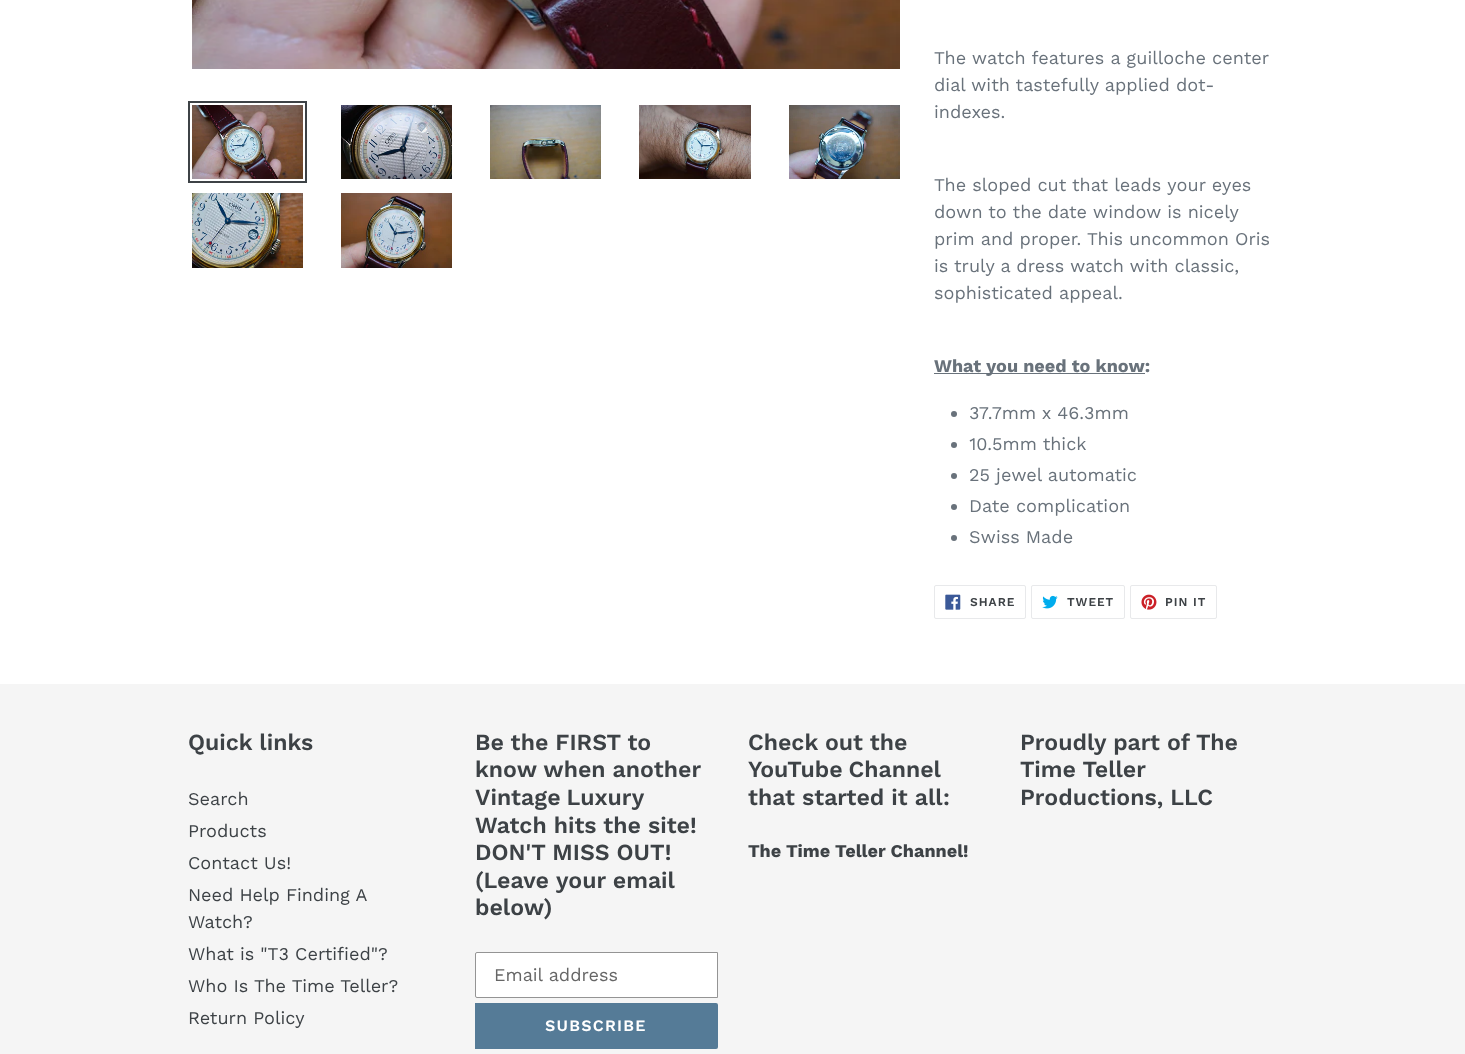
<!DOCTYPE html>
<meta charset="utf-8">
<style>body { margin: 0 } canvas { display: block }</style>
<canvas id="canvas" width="1465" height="1054"></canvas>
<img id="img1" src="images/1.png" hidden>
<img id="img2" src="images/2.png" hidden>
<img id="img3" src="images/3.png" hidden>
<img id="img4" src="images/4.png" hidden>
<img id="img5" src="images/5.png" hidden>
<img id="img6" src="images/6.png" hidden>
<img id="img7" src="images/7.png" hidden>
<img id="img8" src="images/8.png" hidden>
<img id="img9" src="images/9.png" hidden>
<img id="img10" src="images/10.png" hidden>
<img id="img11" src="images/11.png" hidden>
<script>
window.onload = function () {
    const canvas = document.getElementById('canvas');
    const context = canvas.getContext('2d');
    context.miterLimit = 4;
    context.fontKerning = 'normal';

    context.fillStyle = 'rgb(255, 255, 255)';
    context.fillRect(0, 0, 1465, 1054);
    context.drawImage(document.getElementById('img1'), 192, 0, 708, 69);
    context.strokeStyle = 'rgb(61, 66, 70)';
    context.lineWidth = 2;
    context.strokeRect(189, 102, 117, 80);
    context.drawImage(document.getElementById('img2'), 192, 105, 111, 74);
    context.drawImage(document.getElementById('img3'), 341, 105, 111, 74);
    context.drawImage(document.getElementById('img4'), 490, 105, 111, 74);
    context.drawImage(document.getElementById('img5'), 639, 105, 112, 74);
    context.drawImage(document.getElementById('img6'), 789, 105, 111, 74);
    context.drawImage(document.getElementById('img7'), 192, 193, 111, 75);
    context.drawImage(document.getElementById('img8'), 341, 193, 111, 75);
    context.fillStyle = 'rgb(105, 114, 123)';
    context.fillRect(934, 373, 211, 1);
    context.beginPath();
    context.arc(954, 414, 3, 0, 2 * Math.PI);
    context.fill();
    context.beginPath();
    context.arc(954, 445, 3, 0, 2 * Math.PI);
    context.fill();
    context.beginPath();
    context.arc(954, 476, 3, 0, 2 * Math.PI);
    context.fill();
    context.beginPath();
    context.arc(954, 507, 3, 0, 2 * Math.PI);
    context.fill();
    context.beginPath();
    context.arc(954, 538, 3, 0, 2 * Math.PI);
    context.fill();
    context.beginPath();
    context.roundRect(934.5, 585.5, 91, 33, 1.5);
    context.strokeStyle = 'rgb(232, 233, 235)';
    context.lineWidth = 1;
    context.stroke();
    context.drawImage(document.getElementById('img9'), 945, 594, 16, 16);
    context.beginPath();
    context.roundRect(1031.5, 585.5, 93, 33, 1.5);
    context.stroke();
    context.drawImage(document.getElementById('img10'), 1042, 595, 16, 14);
    context.beginPath();
    context.roundRect(1130.5, 585.5, 86, 33, 1.5);
    context.stroke();
    context.drawImage(document.getElementById('img11'), 1141, 594, 16, 16);
    context.fillStyle = 'rgb(245, 245, 245)';
    context.fillRect(0, 684, 1465, 370);
    context.fillStyle = 'rgb(255, 255, 255)';
    context.beginPath();
    context.roundRect(475.5, 952.5, 242, 45, [1.5, 0, 0, 1.5]);
    context.fill();
    context.strokeStyle = 'rgb(148, 148, 148)';
    context.stroke();
    context.fillStyle = 'rgb(85, 123, 151)';
    context.beginPath();
    context.roundRect(475, 1003, 243, 46, [0, 2, 2, 0]);
    context.fill();
    context.font = '18px Work Sans';
    context.fillStyle = 'rgb(105, 114, 123)';
    context.fillText('The watch features a guilloche center', 934, 64);
    context.fillText('dial with tastefully applied dot-', 934, 91);
    context.fillText('indexes.', 934, 118);
    context.fillText('The sloped cut that leads your eyes', 934, 191);
    context.fillText('down to the date window is nicely', 934, 218);
    context.fillText('prim and proper. This uncommon Oris', 934, 245);
    context.fillText('is truly a dress watch with classic,', 934, 272);
    context.fillText('sophisticated appeal.', 934, 299);
    context.font = 'bold 18px Work Sans';
    context.fillText('What you need to know:', 934, 372);
    context.font = '18px Work Sans';
    context.fillText('37.7mm x 46.3mm', 969, 419);
    context.fillText('10.5mm thick', 969, 450);
    context.fillText('25 jewel automatic', 969, 481);
    context.fillText('Date complication', 969, 512);
    context.fillText('Swiss Made', 969, 543);
    context.letterSpacing = '1px';
    context.font = '600 12px Work Sans';
    context.fillStyle = 'rgb(61, 66, 70)';
    context.fillText('SHARE', 970, 606);
    context.fillText('TWEET', 1067, 606);
    context.fillText('PIN IT', 1165, 606);
    context.letterSpacing = '0px';
    context.font = '600 23px Work Sans';
    context.fillText('Quick links', 188, 750);
    context.font = '18px Work Sans';
    context.fillText('Search', 188, 805);
    context.fillText('Products', 188, 837);
    context.fillText('Contact Us!', 188, 869);
    context.fillText('Need Help Finding A', 188, 901);
    context.fillText('Watch?', 188, 928);
    context.fillText('What is "T3 Certified"?', 188, 960);
    context.fillText('Who Is The Time Teller?', 188, 992);
    context.fillText('Return Policy', 188, 1024);
    context.font = '600 23px Work Sans';
    context.fillText('Be the FIRST to', 475, 750);
    context.fillText('know when another', 475, 777);
    context.wordSpacing = '-1px';
    context.fillText('Vintage Luxury', 475, 805);
    context.wordSpacing = '0px';
    context.fillText('Watch hits the site!', 475, 833);
    context.fillText('DON\'T MISS OUT!', 475, 860);
    context.fillText('(Leave your email', 475, 888);
    context.fillText('below)', 475, 915);
    context.font = '18px Work Sans';
    context.fillStyle = 'rgb(102, 102, 102)';
    context.fillText('Email address', 494, 981);
    context.letterSpacing = '1.25px';
    context.font = '600 16px Work Sans';
    context.fillStyle = 'rgb(255, 255, 255)';
    context.fillText('SUBSCRIBE', 545, 1031);
    context.letterSpacing = '0px';
    context.font = '600 23px Work Sans';
    context.fillStyle = 'rgb(61, 66, 70)';
    context.fillText('Check out the', 748, 750);
    context.wordSpacing = '-1px';
    context.fillText('YouTube Channel', 748, 777);
    context.wordSpacing = '0px';
    context.fillText('that started it all:', 748, 805);
    context.font = 'bold 18px Work Sans';
    context.fillText('The Time Teller Channel!', 748, 857);
    context.font = '600 23px Work Sans';
    context.fillText('Proudly part of The', 1020, 750);
    context.fillText('Time Teller', 1020, 777);
    context.fillText('Productions, LLC', 1020, 805);
};
</script>
